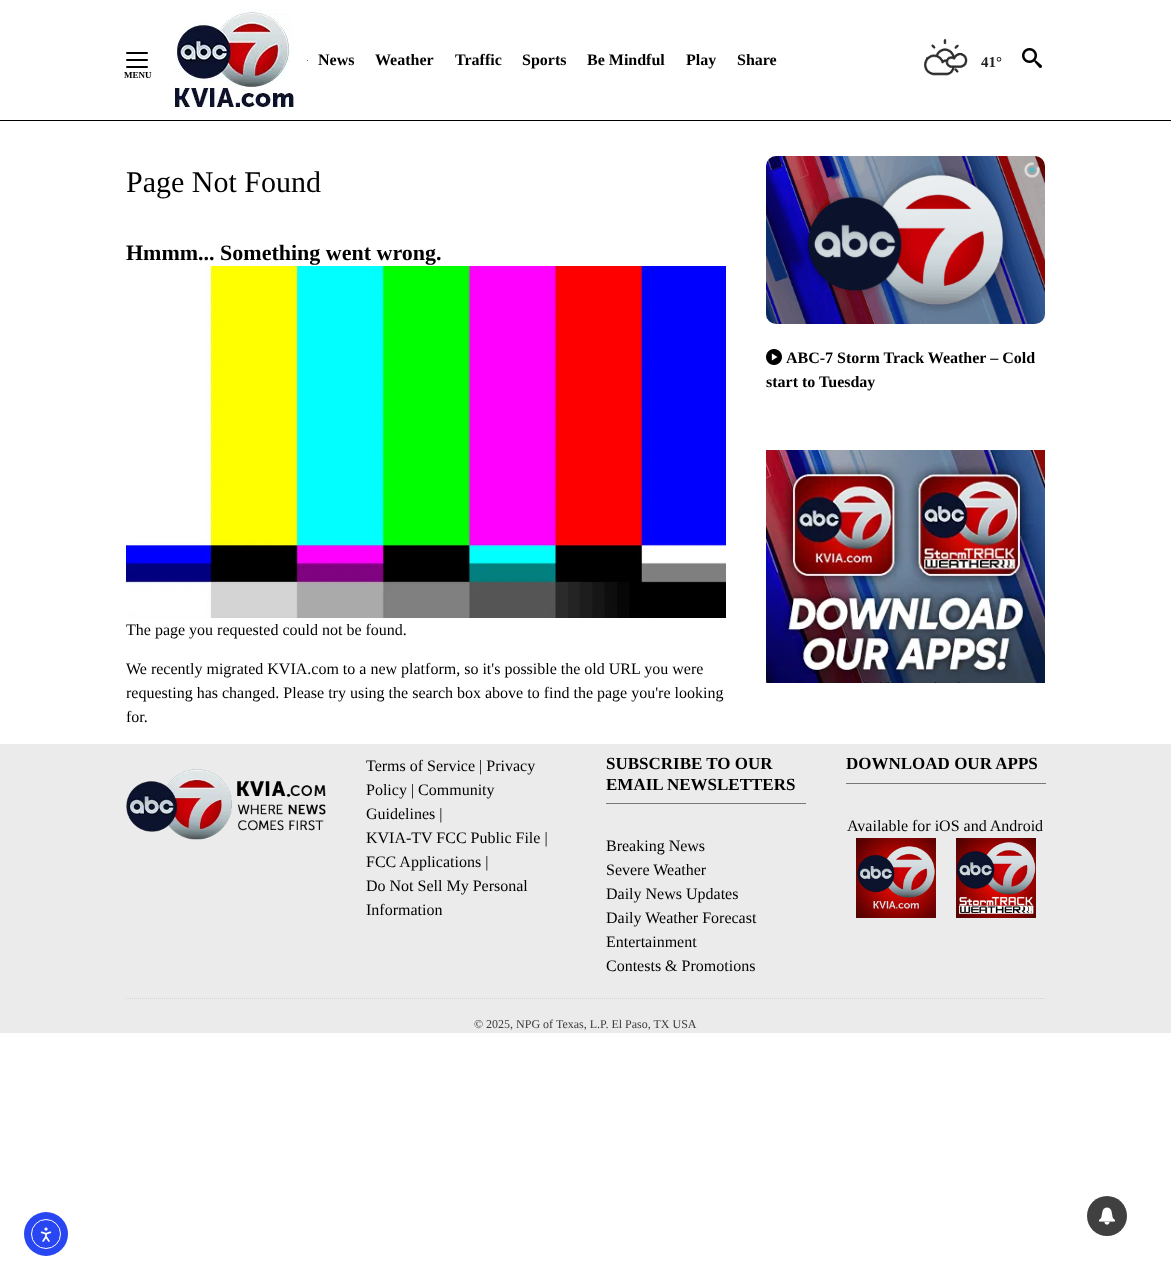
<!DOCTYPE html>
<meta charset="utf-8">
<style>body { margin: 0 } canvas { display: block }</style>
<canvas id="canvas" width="1171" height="1280"></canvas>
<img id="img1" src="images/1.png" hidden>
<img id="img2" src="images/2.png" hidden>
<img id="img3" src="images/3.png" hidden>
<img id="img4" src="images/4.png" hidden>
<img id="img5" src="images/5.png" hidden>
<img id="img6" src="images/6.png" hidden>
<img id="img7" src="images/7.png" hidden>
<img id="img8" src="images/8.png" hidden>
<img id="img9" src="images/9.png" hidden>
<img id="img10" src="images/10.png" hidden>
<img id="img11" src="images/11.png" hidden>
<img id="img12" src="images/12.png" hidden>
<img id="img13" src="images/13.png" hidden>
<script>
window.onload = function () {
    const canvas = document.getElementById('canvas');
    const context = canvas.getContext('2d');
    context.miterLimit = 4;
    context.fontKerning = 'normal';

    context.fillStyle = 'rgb(255, 255, 255)';
    context.fillRect(0, 0, 1171, 1280);
    context.fillStyle = 'rgb(0, 0, 0)';
    context.fillRect(0, 120, 1171, 1);
    context.drawImage(document.getElementById('img1'), 170, 10, 124, 100);
    context.fillStyle = 'rgb(111, 99, 116)';
    context.fillRect(307, 60, 1, 1);
    context.drawImage(document.getElementById('img2'), 924, 38, 44, 38);
    context.drawImage(document.getElementById('img3'), 1022, 48, 20, 20);
    context.fillStyle = 'rgb(0, 0, 0)';
    context.beginPath();
    context.roundRect(126, 52, 22, 2, 1);
    context.fill();
    context.beginPath();
    context.roundRect(126, 59, 22, 2, 1);
    context.fill();
    context.beginPath();
    context.roundRect(126, 66, 22, 2, 1);
    context.fill();
    context.drawImage(document.getElementById('img4'), 126, 266, 600, 352);
    context.drawImage(document.getElementById('img5'), 766, 156, 279, 168);
    context.drawImage(document.getElementById('img6'), 1024, 162, 16, 16);
    context.drawImage(document.getElementById('img7'), 766, 349, 16, 16);
    context.drawImage(document.getElementById('img8'), 766, 450, 279, 233);
    context.fillStyle = 'rgb(235, 235, 235)';
    context.fillRect(0, 744, 1171, 289);
    context.drawImage(document.getElementById('img9'), 126, 769, 200, 71);
    context.fillStyle = 'rgb(119, 119, 119)';
    context.fillRect(606, 803, 200, 1);
    context.fillRect(846, 783, 200, 1);
    context.drawImage(document.getElementById('img10'), 856, 838, 80, 80);
    context.drawImage(document.getElementById('img11'), 956, 838, 80, 80);
    context.beginPath();
    context.moveTo(126, 998.5);
    context.lineTo(1046, 998.5);
    context.strokeStyle = 'rgb(212, 212, 212)';
    context.setLineDash([1, 1]);
    context.stroke();
    context.fillStyle = 'rgb(40, 71, 243)';
    context.beginPath();
    context.arc(46, 1234, 22, 0, 2 * Math.PI);
    context.fill();
    context.beginPath();
    context.arc(46, 1234, 14.5, 0, 2 * Math.PI);
    context.strokeStyle = 'rgb(255, 255, 255)';
    context.setLineDash([]);
    context.stroke();
    context.drawImage(document.getElementById('img12'), 40, 1227, 12, 15);
    context.fillStyle = 'rgb(64, 64, 64)';
    context.beginPath();
    context.arc(1107, 1216, 20, 0, 2 * Math.PI);
    context.fill();
    context.drawImage(document.getElementById('img13'), 1098, 1207, 18, 18);
    context.font = 'bold 16px Liberation Serif';
    context.fillStyle = 'rgb(0, 0, 0)';
    context.fillText('News', 318, 65);
    context.fillText('Weather', 375, 65);
    context.fillText('Traffic', 455, 65);
    context.fillText('Sports', 522, 65);
    context.fillText('Be Mindful', 587, 65);
    context.fillText('Play', 686, 65);
    context.fillText('Share', 737, 65);
    context.font = 'bold 15px Liberation Serif';
    context.fillStyle = 'rgb(33, 33, 33)';
    context.fillText('41°', 981, 67);
    context.font = 'bold 9px Liberation Serif';
    context.fillStyle = 'rgb(0, 0, 0)';
    context.fillText('MENU', 124, 78);
    context.font = '30px Liberation Serif';
    context.fillText('Page Not Found', 126, 192);
    context.font = 'bold 22px Liberation Serif';
    context.fillText('Hmmm... Something went wrong.', 126, 260);
    context.font = '16px Liberation Serif';
    context.fillText('The page you requested could not be found.', 126, 635);
    context.fillText('We recently migrated KVIA.com to a new platform, so it\'s possible the old URL you were', 126, 674);
    context.fillText('requesting has changed. Please try using the search box above to find the page you\'re looking', 126, 698);
    context.fillText('for.', 126, 722);
    context.font = 'bold 16px Liberation Serif';
    context.fillText('ABC-7 Storm Track Weather – Cold', 786, 363);
    context.fillText('start to Tuesday', 766, 387);
    context.font = '16px Liberation Serif';
    context.fillText('Terms of Service | Privacy', 366, 771);
    context.fillText('Policy | Community', 366, 795);
    context.fillText('Guidelines |', 366, 819);
    context.fillText('KVIA-TV FCC Public File |', 366, 843);
    context.fillText('FCC Applications |', 366, 867);
    context.fillText('Do Not Sell My Personal', 366, 891);
    context.fillText('Information', 366, 915);
    context.font = 'bold 17px Liberation Serif';
    context.fillText('SUBSCRIBE TO OUR', 606, 769);
    context.fillText('EMAIL NEWSLETTERS', 606, 790);
    context.font = '16px Liberation Serif';
    context.fillText('Breaking News', 606, 851);
    context.fillText('Severe Weather', 606, 875);
    context.fillText('Daily News Updates', 606, 899);
    context.fillText('Daily Weather Forecast', 606, 923);
    context.fillText('Entertainment', 606, 947);
    context.fillText('Contests & Promotions', 606, 971);
    context.font = 'bold 17px Liberation Serif';
    context.fillText('DOWNLOAD OUR APPS', 846, 769);
    context.font = '16px Liberation Serif';
    context.fillText('Available for iOS and Android', 847, 831);
    context.font = '12px Liberation Serif';
    context.fillStyle = 'rgb(59, 59, 59)';
    context.fillText('© 2025, NPG of Texas, L.P. El Paso, TX USA', 474, 1028);
};
</script>
